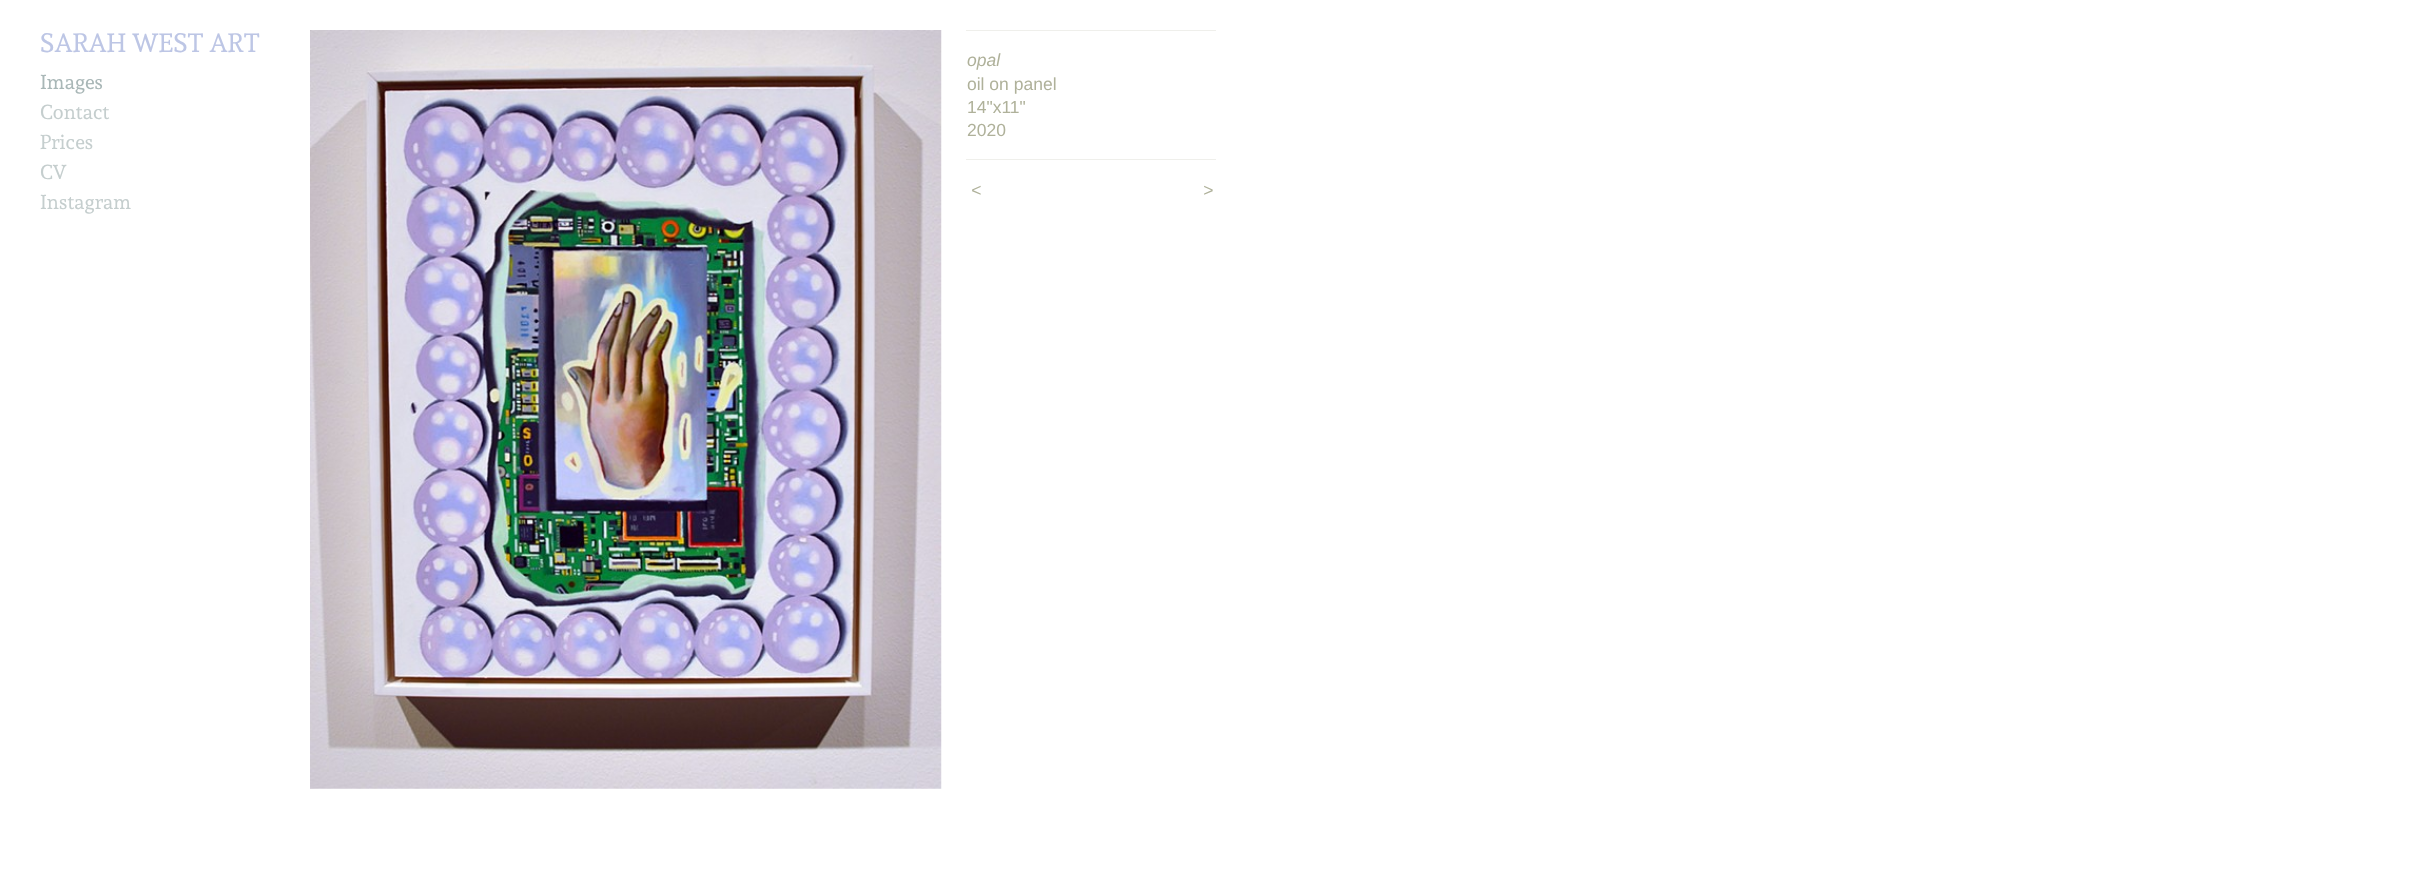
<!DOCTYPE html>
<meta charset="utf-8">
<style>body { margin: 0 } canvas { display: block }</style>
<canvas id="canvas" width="2418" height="892"></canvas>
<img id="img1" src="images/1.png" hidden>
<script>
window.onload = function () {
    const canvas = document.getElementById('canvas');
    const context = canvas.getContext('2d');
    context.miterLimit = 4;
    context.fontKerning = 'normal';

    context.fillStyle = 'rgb(255, 255, 255)';
    context.fillRect(0, 0, 2418, 892);
    context.drawImage(document.getElementById('img1'), 310, 30, 632, 759);
    context.fillStyle = 'rgb(239, 239, 235)';
    context.fillRect(966, 30, 250, 1);
    context.fillRect(966, 159, 250, 1);
    context.font = '26.25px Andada';
    context.fillStyle = 'rgb(189, 198, 229)';
    context.fillText('SARAH WEST ART', 40, 52);
    context.font = '20px Andada';
    context.fillStyle = 'rgb(169, 183, 183)';
    context.fillText('Images', 40, 89);
    context.fillStyle = 'rgb(197, 206, 206)';
    context.fillText('Contact', 40, 119);
    context.fillText('Prices', 40, 149);
    context.fillText('CV', 40, 179);
    context.fillText('Instagram', 40, 209);
    context.font = 'italic 17.5px Liberation Sans';
    context.fillStyle = 'rgb(175, 177, 154)';
    context.fillText('opal', 967, 66);
    context.font = '17.5px Liberation Sans';
    context.fillText('oil on panel', 967, 90);
    context.fillText('14"x11"', 967, 113);
    context.fillText('2020', 967, 136);
    context.letterSpacing = '1px';
    context.font = 'italic 17.5px Liberation Sans';
    context.fillText('<', 971, 196);
    context.fillText('>', 1203, 196);
};
</script>
